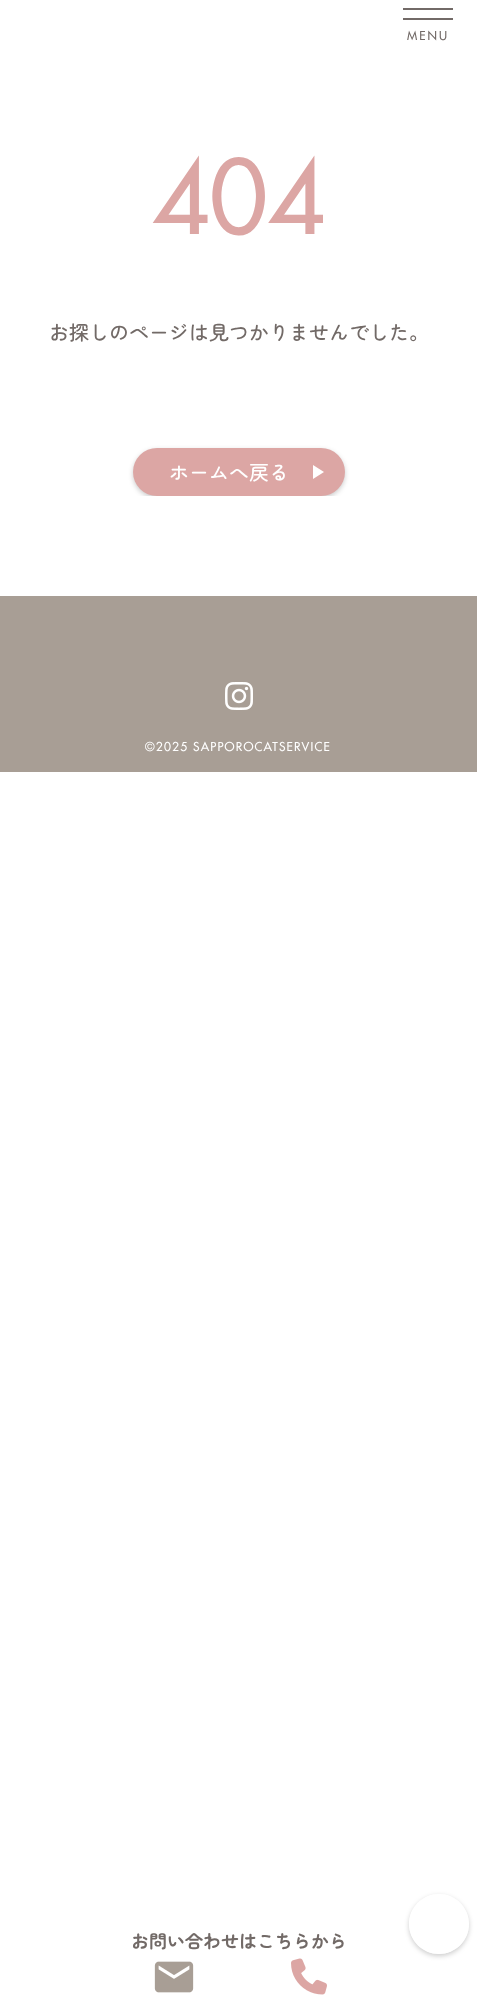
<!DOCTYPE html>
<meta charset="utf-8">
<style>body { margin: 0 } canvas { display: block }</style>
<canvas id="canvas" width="477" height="2014"></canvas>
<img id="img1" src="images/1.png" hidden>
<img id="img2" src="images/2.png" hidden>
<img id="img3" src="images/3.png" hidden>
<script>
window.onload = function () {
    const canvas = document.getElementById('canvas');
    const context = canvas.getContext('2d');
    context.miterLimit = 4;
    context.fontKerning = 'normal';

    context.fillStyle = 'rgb(255, 255, 255)';
    context.fillRect(0, 0, 477, 2014);
    context.fillStyle = 'rgb(114, 106, 103)';
    context.fillRect(403, 8, 50, 2);
    context.fillRect(403, 18, 50, 2);
    context.save();
    context.beginPath();
    context.rect(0, 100, 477, 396);
    context.clip();
    context.fillStyle = 'rgba(0, 0, 0, 0.2)';
    context.filter = 'blur(2.5px)';
    context.beginPath();
    context.roundRect(133, 450, 212, 48, 24);
    context.fill();
    context.filter = 'none';
    context.restore();
    context.fillStyle = 'rgb(220, 166, 164)';
    context.beginPath();
    context.roundRect(133, 448, 212, 48, 24);
    context.fill();
    context.fillStyle = 'rgb(255, 255, 255)';
    context.beginPath();
    context.moveTo(313, 465);
    context.lineTo(324, 472);
    context.lineTo(313, 479);
    context.closePath();
    context.fill();
    context.fillStyle = 'rgb(168, 158, 149)';
    context.fillRect(0, 596, 477, 176);
    context.drawImage(document.getElementById('img1'), 225, 682, 28, 28);
    context.drawImage(document.getElementById('img2'), 154, 1961, 40, 32);
    context.drawImage(document.getElementById('img3'), 291, 1958, 36, 37);
    context.save();
    context.beginPath();
    context.moveTo(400, 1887);
    context.lineTo(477, 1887);
    context.lineTo(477, 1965);
    context.lineTo(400, 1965);
    context.closePath();
    context.moveTo(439, 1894);
    context.bezierCurveTo(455.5, 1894, 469, 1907.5, 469, 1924);
    context.bezierCurveTo(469, 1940.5, 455.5, 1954, 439, 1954);
    context.bezierCurveTo(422.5, 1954, 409, 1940.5, 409, 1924);
    context.bezierCurveTo(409, 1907.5, 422.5, 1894, 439, 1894);
    context.closePath();
    context.clip('evenodd');
    context.fillStyle = 'rgba(0, 0, 0, 0.2)';
    context.filter = 'blur(2.5px)';
    context.beginPath();
    context.roundRect(409, 1896, 60, 60, 30);
    context.fill();
    context.filter = 'none';
    context.restore();
    context.fillStyle = 'rgba(255, 255, 255, 0.77)';
    context.beginPath();
    context.arc(439, 1924, 30, 0, 2 * Math.PI);
    context.fill();
    context.letterSpacing = '2px';
    context.font = '500 12px Futura';
    context.fillStyle = 'rgb(114, 106, 103)';
    context.fillText('MENU', 407, 40);
    context.letterSpacing = '0px';
    context.font = '500 100px Futura';
    context.fillStyle = 'rgb(220, 166, 164)';
    context.fillText('404', 152, 234);
    context.font = '500 20px Zen Maru Gothic';
    context.fillStyle = 'rgb(114, 106, 103)';
    context.fillText('お探しのページは見つかりませんでした。', 49, 340);
    context.fillStyle = 'rgb(255, 255, 255)';
    context.fillText('ホームへ戻る', 169, 480);
    context.letterSpacing = '1.2px';
    context.font = '500 12px Futura';
    context.fillText('©︎2025 SAPPOROCATSERVICE', 145, 751);
    context.letterSpacing = '0px';
    context.font = 'bold 18px Zen Maru Gothic';
    context.fillStyle = 'rgb(114, 106, 103)';
    context.fillText('お問い合わせはこちらから', 131, 1948);
};
</script>
